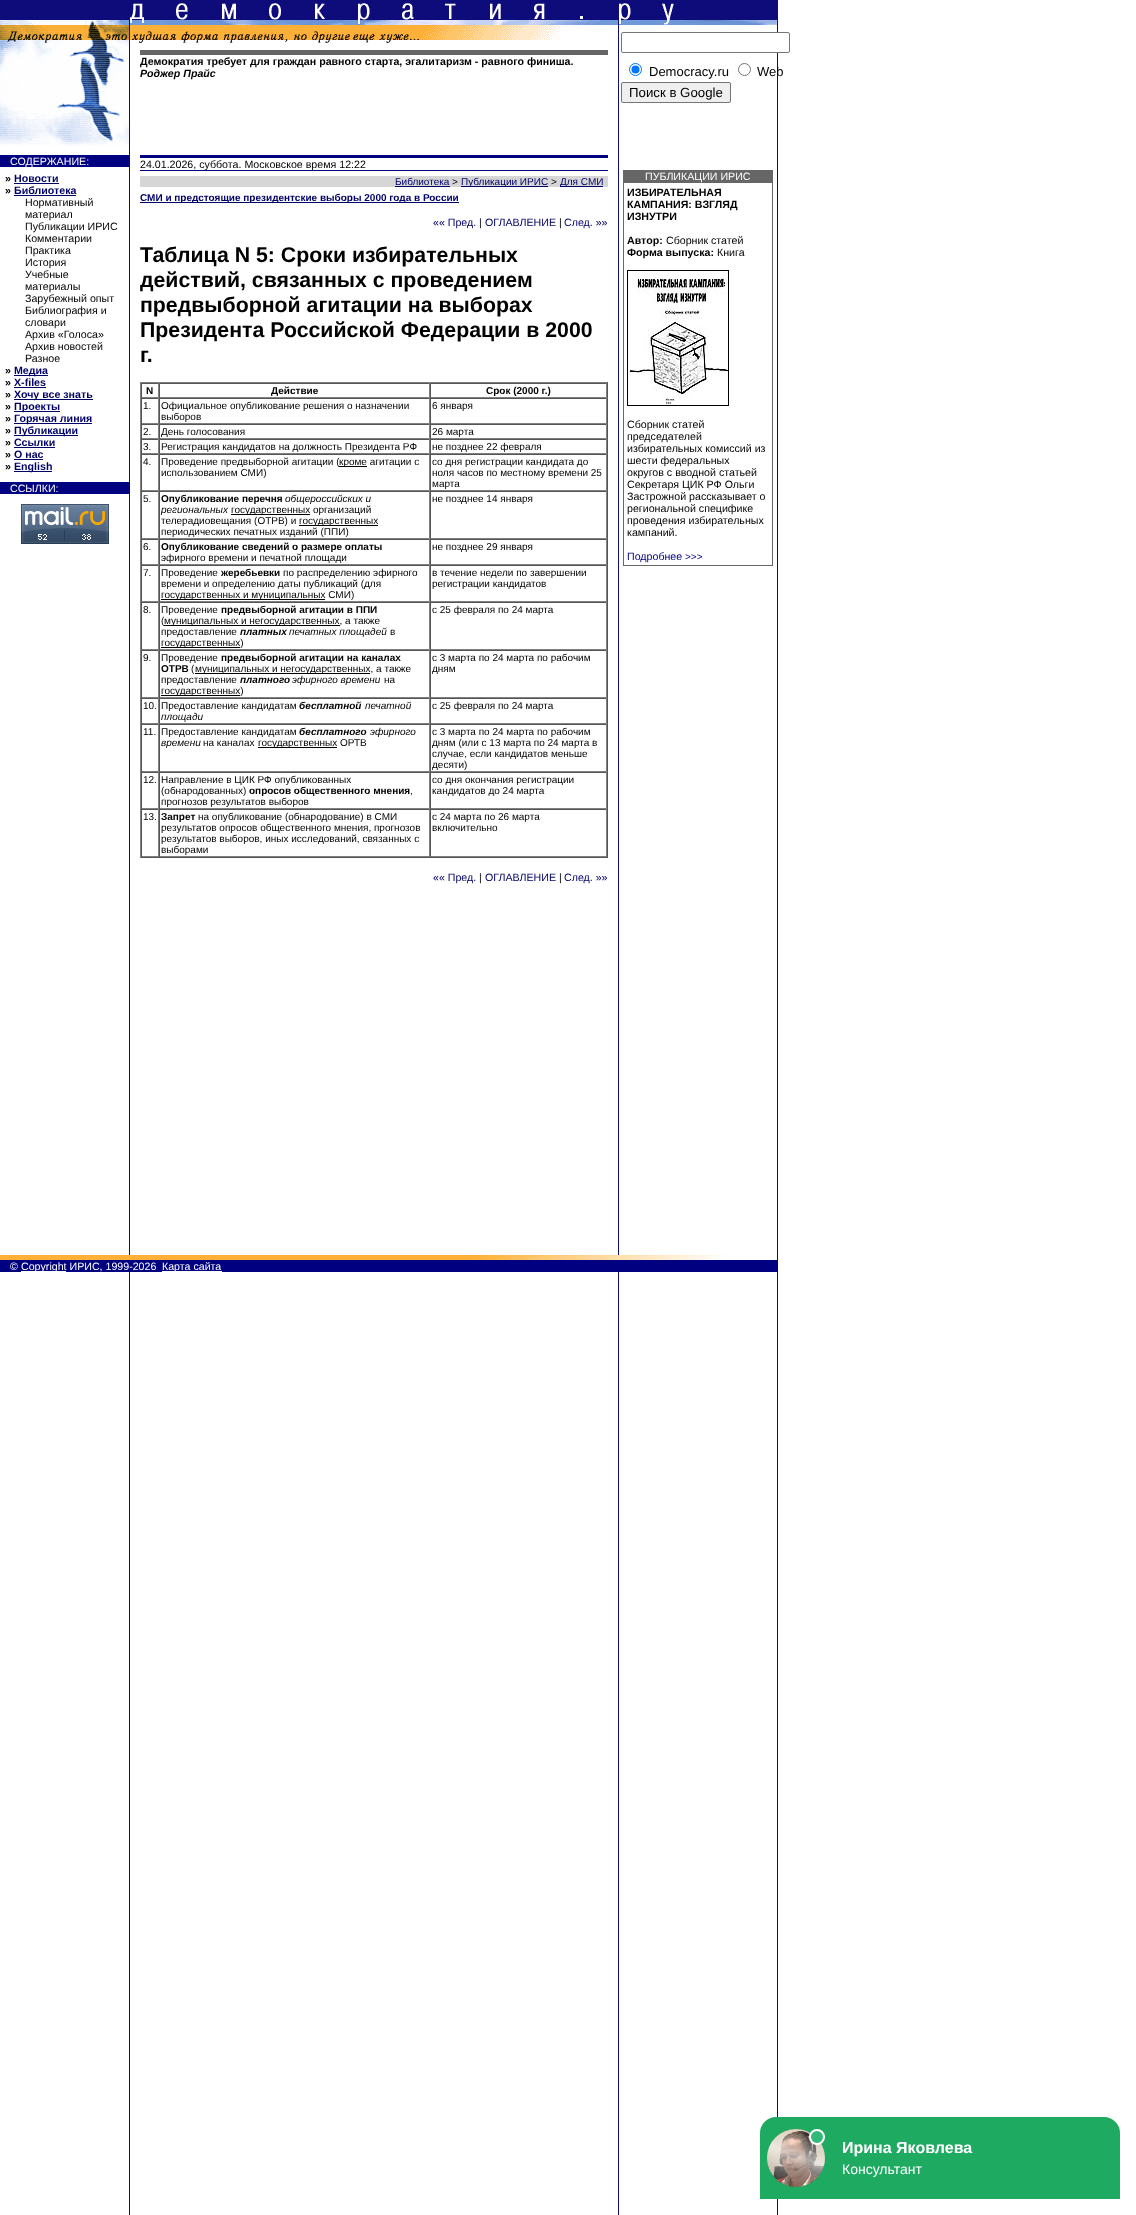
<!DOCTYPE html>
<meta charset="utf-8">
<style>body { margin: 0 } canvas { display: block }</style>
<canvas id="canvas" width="1136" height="2215"></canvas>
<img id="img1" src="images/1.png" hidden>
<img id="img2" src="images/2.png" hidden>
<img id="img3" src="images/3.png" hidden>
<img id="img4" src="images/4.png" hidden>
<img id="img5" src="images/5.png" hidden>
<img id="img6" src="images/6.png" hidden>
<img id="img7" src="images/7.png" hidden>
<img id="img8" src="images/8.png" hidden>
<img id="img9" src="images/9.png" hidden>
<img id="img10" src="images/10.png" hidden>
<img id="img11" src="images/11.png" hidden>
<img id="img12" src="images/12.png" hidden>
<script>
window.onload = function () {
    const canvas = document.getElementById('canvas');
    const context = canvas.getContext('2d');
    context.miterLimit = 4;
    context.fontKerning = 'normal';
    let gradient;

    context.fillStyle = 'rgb(255, 255, 255)';
    context.fillRect(0, 0, 1136, 2215);
    context.drawImage(document.getElementById('img1'), 129, 0, 649, 2215);
    context.drawImage(document.getElementById('img2'), 0, 0, 777, 20);
    context.drawImage(document.getElementById('img3'), 0, 20, 129, 5);
    context.drawImage(document.getElementById('img4'), 130, 20, 647, 5);
    context.drawImage(document.getElementById('img5'), 0, 25, 129, 15);
    context.drawImage(document.getElementById('img6'), 0, 40, 129, 106);
    context.drawImage(document.getElementById('img7'), 130, 25, 430, 15);
    context.drawImage(document.getElementById('img8'), 139, 40, 252, 3);
    context.fillStyle = 'rgb(102, 102, 102)';
    context.fillRect(140, 50, 468, 5);
    context.fillStyle = 'rgb(255, 255, 255)';
    context.beginPath();
    context.roundRect(621.5, 32.5, 168, 20, 1.5);
    context.fill();
    context.strokeStyle = 'rgb(118, 118, 118)';
    context.stroke();
    context.beginPath();
    context.arc(635.5, 69.5, 6, 0, 2 * Math.PI);
    context.strokeStyle = 'rgb(0, 117, 255)';
    context.stroke();
    context.fillStyle = 'rgb(0, 117, 255)';
    context.beginPath();
    context.arc(635.5, 69.5, 4, 0, 2 * Math.PI);
    context.fill();
    context.beginPath();
    context.arc(744.5, 69.5, 6, 0, 2 * Math.PI);
    context.strokeStyle = 'rgb(118, 118, 118)';
    context.stroke();
    context.fillStyle = 'rgb(239, 239, 239)';
    context.beginPath();
    context.roundRect(621.5, 82.5, 109, 20, 1.5);
    context.fill();
    context.stroke();
    context.fillStyle = 'rgb(0, 0, 128)';
    context.fillRect(0, 155, 130, 12);
    context.fillStyle = 'rgb(0, 0, 102)';
    context.fillRect(14, 183, 45, 1);
    context.fillRect(14, 195, 62, 1);
    context.fillRect(14, 375, 34, 1);
    context.fillRect(14, 387, 32, 1);
    context.fillRect(14, 399, 79, 1);
    context.fillRect(14, 411, 46, 1);
    context.fillRect(14, 423, 78, 1);
    context.fillRect(14, 435, 64, 1);
    context.fillRect(14, 447, 41, 1);
    context.fillRect(14, 459, 29, 1);
    context.fillRect(14, 471, 38, 1);
    context.fillStyle = 'rgb(0, 0, 128)';
    context.fillRect(0, 482, 130, 12);
    context.drawImage(document.getElementById('img9'), 21, 504, 88, 40);
    context.fillRect(140, 155, 468, 3);
    context.fillRect(140, 170, 468, 1);
    context.fillStyle = 'rgb(214, 214, 214)';
    context.fillRect(140, 176, 468, 11);
    context.fillStyle = 'rgb(0, 0, 102)';
    context.fillRect(395, 186, 55, 1);
    context.fillRect(461, 186, 87, 1);
    context.fillRect(560, 186, 43, 1);
    context.fillRect(140, 202, 319, 1);
    context.fillStyle = 'rgb(128, 128, 128)';
    context.fillRect(140, 382, 468, 1);
    context.fillStyle = 'rgb(85, 85, 85)';
    context.fillRect(607, 382, 1, 476);
    context.fillRect(140, 857, 468, 1);
    context.fillStyle = 'rgb(128, 128, 128)';
    context.fillRect(140, 382, 1, 476);
    context.fillStyle = 'rgb(85, 85, 85)';
    context.fillRect(141, 383, 466, 1);
    context.fillStyle = 'rgb(128, 128, 128)';
    context.fillRect(158, 383, 1, 15);
    context.fillRect(141, 397, 18, 1);
    context.fillStyle = 'rgb(85, 85, 85)';
    context.fillRect(141, 383, 1, 15);
    context.fillStyle = 'rgb(128, 128, 128)';
    context.fillRect(429, 383, 1, 15);
    context.fillRect(159, 397, 271, 1);
    context.fillStyle = 'rgb(85, 85, 85)';
    context.fillRect(159, 383, 1, 15);
    context.fillStyle = 'rgb(128, 128, 128)';
    context.fillRect(606, 383, 1, 15);
    context.fillRect(430, 397, 177, 1);
    context.fillStyle = 'rgb(85, 85, 85)';
    context.fillRect(430, 383, 1, 15);
    context.fillRect(141, 398, 466, 1);
    context.fillStyle = 'rgb(128, 128, 128)';
    context.fillRect(158, 398, 1, 26);
    context.fillRect(141, 423, 18, 1);
    context.fillStyle = 'rgb(85, 85, 85)';
    context.fillRect(141, 398, 1, 26);
    context.fillStyle = 'rgb(128, 128, 128)';
    context.fillRect(429, 398, 1, 26);
    context.fillRect(159, 423, 271, 1);
    context.fillStyle = 'rgb(85, 85, 85)';
    context.fillRect(159, 398, 1, 26);
    context.fillStyle = 'rgb(128, 128, 128)';
    context.fillRect(606, 398, 1, 26);
    context.fillRect(430, 423, 177, 1);
    context.fillStyle = 'rgb(85, 85, 85)';
    context.fillRect(430, 398, 1, 26);
    context.fillRect(141, 424, 466, 1);
    context.fillStyle = 'rgb(128, 128, 128)';
    context.fillRect(158, 424, 1, 15);
    context.fillRect(141, 438, 18, 1);
    context.fillStyle = 'rgb(85, 85, 85)';
    context.fillRect(141, 424, 1, 15);
    context.fillStyle = 'rgb(128, 128, 128)';
    context.fillRect(429, 424, 1, 15);
    context.fillRect(159, 438, 271, 1);
    context.fillStyle = 'rgb(85, 85, 85)';
    context.fillRect(159, 424, 1, 15);
    context.fillStyle = 'rgb(128, 128, 128)';
    context.fillRect(606, 424, 1, 15);
    context.fillRect(430, 438, 177, 1);
    context.fillStyle = 'rgb(85, 85, 85)';
    context.fillRect(430, 424, 1, 15);
    context.fillRect(141, 439, 466, 1);
    context.fillStyle = 'rgb(128, 128, 128)';
    context.fillRect(158, 439, 1, 15);
    context.fillRect(141, 453, 18, 1);
    context.fillStyle = 'rgb(85, 85, 85)';
    context.fillRect(141, 439, 1, 15);
    context.fillStyle = 'rgb(128, 128, 128)';
    context.fillRect(429, 439, 1, 15);
    context.fillRect(159, 453, 271, 1);
    context.fillStyle = 'rgb(85, 85, 85)';
    context.fillRect(159, 439, 1, 15);
    context.fillStyle = 'rgb(128, 128, 128)';
    context.fillRect(606, 439, 1, 15);
    context.fillRect(430, 453, 177, 1);
    context.fillStyle = 'rgb(85, 85, 85)';
    context.fillRect(430, 439, 1, 15);
    context.fillRect(141, 454, 466, 1);
    context.fillStyle = 'rgb(128, 128, 128)';
    context.fillRect(158, 454, 1, 37);
    context.fillRect(141, 490, 18, 1);
    context.fillStyle = 'rgb(85, 85, 85)';
    context.fillRect(141, 454, 1, 37);
    context.fillStyle = 'rgb(128, 128, 128)';
    context.fillRect(429, 454, 1, 37);
    context.fillRect(159, 490, 271, 1);
    context.fillStyle = 'rgb(85, 85, 85)';
    context.fillRect(159, 454, 1, 37);
    context.fillStyle = 'rgb(0, 0, 0)';
    context.fillRect(339, 466, 28, 1);
    context.fillStyle = 'rgb(128, 128, 128)';
    context.fillRect(606, 454, 1, 37);
    context.fillRect(430, 490, 177, 1);
    context.fillStyle = 'rgb(85, 85, 85)';
    context.fillRect(430, 454, 1, 37);
    context.fillRect(141, 491, 466, 1);
    context.fillStyle = 'rgb(128, 128, 128)';
    context.fillRect(158, 491, 1, 48);
    context.fillRect(141, 538, 18, 1);
    context.fillStyle = 'rgb(85, 85, 85)';
    context.fillRect(141, 491, 1, 48);
    context.fillStyle = 'rgb(128, 128, 128)';
    context.fillRect(429, 491, 1, 48);
    context.fillRect(159, 538, 271, 1);
    context.fillStyle = 'rgb(85, 85, 85)';
    context.fillRect(159, 491, 1, 48);
    context.fillStyle = 'rgb(0, 0, 0)';
    context.fillRect(231, 514, 79, 1);
    context.fillRect(299, 525, 79, 1);
    context.fillStyle = 'rgb(128, 128, 128)';
    context.fillRect(606, 491, 1, 48);
    context.fillRect(430, 538, 177, 1);
    context.fillStyle = 'rgb(85, 85, 85)';
    context.fillRect(430, 491, 1, 48);
    context.fillRect(141, 539, 466, 1);
    context.fillStyle = 'rgb(128, 128, 128)';
    context.fillRect(158, 539, 1, 26);
    context.fillRect(141, 564, 18, 1);
    context.fillStyle = 'rgb(85, 85, 85)';
    context.fillRect(141, 539, 1, 26);
    context.fillStyle = 'rgb(128, 128, 128)';
    context.fillRect(429, 539, 1, 26);
    context.fillRect(159, 564, 271, 1);
    context.fillStyle = 'rgb(85, 85, 85)';
    context.fillRect(159, 539, 1, 26);
    context.fillStyle = 'rgb(128, 128, 128)';
    context.fillRect(606, 539, 1, 26);
    context.fillRect(430, 564, 177, 1);
    context.fillStyle = 'rgb(85, 85, 85)';
    context.fillRect(430, 539, 1, 26);
    context.fillRect(141, 565, 466, 1);
    context.fillStyle = 'rgb(128, 128, 128)';
    context.fillRect(158, 565, 1, 37);
    context.fillRect(141, 601, 18, 1);
    context.fillStyle = 'rgb(85, 85, 85)';
    context.fillRect(141, 565, 1, 37);
    context.fillStyle = 'rgb(128, 128, 128)';
    context.fillRect(429, 565, 1, 37);
    context.fillRect(159, 601, 271, 1);
    context.fillStyle = 'rgb(85, 85, 85)';
    context.fillRect(159, 565, 1, 37);
    context.fillStyle = 'rgb(0, 0, 0)';
    context.fillRect(161, 599, 164, 1);
    context.fillStyle = 'rgb(128, 128, 128)';
    context.fillRect(606, 565, 1, 37);
    context.fillRect(430, 601, 177, 1);
    context.fillStyle = 'rgb(85, 85, 85)';
    context.fillRect(430, 565, 1, 37);
    context.fillRect(141, 602, 466, 1);
    context.fillStyle = 'rgb(128, 128, 128)';
    context.fillRect(158, 602, 1, 48);
    context.fillRect(141, 649, 18, 1);
    context.fillStyle = 'rgb(85, 85, 85)';
    context.fillRect(141, 602, 1, 48);
    context.fillStyle = 'rgb(128, 128, 128)';
    context.fillRect(429, 602, 1, 48);
    context.fillRect(159, 649, 271, 1);
    context.fillStyle = 'rgb(85, 85, 85)';
    context.fillRect(159, 602, 1, 48);
    context.fillStyle = 'rgb(0, 0, 0)';
    context.fillRect(164, 625, 176, 1);
    context.fillRect(161, 647, 79, 1);
    context.fillStyle = 'rgb(128, 128, 128)';
    context.fillRect(606, 602, 1, 48);
    context.fillRect(430, 649, 177, 1);
    context.fillStyle = 'rgb(85, 85, 85)';
    context.fillRect(430, 602, 1, 48);
    context.fillRect(141, 650, 466, 1);
    context.fillStyle = 'rgb(128, 128, 128)';
    context.fillRect(158, 650, 1, 48);
    context.fillRect(141, 697, 18, 1);
    context.fillStyle = 'rgb(85, 85, 85)';
    context.fillRect(141, 650, 1, 48);
    context.fillStyle = 'rgb(128, 128, 128)';
    context.fillRect(429, 650, 1, 48);
    context.fillRect(159, 697, 271, 1);
    context.fillStyle = 'rgb(85, 85, 85)';
    context.fillRect(159, 650, 1, 48);
    context.fillStyle = 'rgb(0, 0, 0)';
    context.fillRect(195, 673, 175, 1);
    context.fillRect(161, 695, 79, 1);
    context.fillStyle = 'rgb(128, 128, 128)';
    context.fillRect(606, 650, 1, 48);
    context.fillRect(430, 697, 177, 1);
    context.fillStyle = 'rgb(85, 85, 85)';
    context.fillRect(430, 650, 1, 48);
    context.fillRect(141, 698, 466, 1);
    context.fillStyle = 'rgb(128, 128, 128)';
    context.fillRect(158, 698, 1, 26);
    context.fillRect(141, 723, 18, 1);
    context.fillStyle = 'rgb(85, 85, 85)';
    context.fillRect(141, 698, 1, 26);
    context.fillStyle = 'rgb(128, 128, 128)';
    context.fillRect(429, 698, 1, 26);
    context.fillRect(159, 723, 271, 1);
    context.fillStyle = 'rgb(85, 85, 85)';
    context.fillRect(159, 698, 1, 26);
    context.fillStyle = 'rgb(128, 128, 128)';
    context.fillRect(606, 698, 1, 26);
    context.fillRect(430, 723, 177, 1);
    context.fillStyle = 'rgb(85, 85, 85)';
    context.fillRect(430, 698, 1, 26);
    context.fillRect(141, 724, 466, 1);
    context.fillStyle = 'rgb(128, 128, 128)';
    context.fillRect(158, 724, 1, 48);
    context.fillRect(141, 771, 18, 1);
    context.fillStyle = 'rgb(85, 85, 85)';
    context.fillRect(141, 724, 1, 48);
    context.fillStyle = 'rgb(128, 128, 128)';
    context.fillRect(429, 724, 1, 48);
    context.fillRect(159, 771, 271, 1);
    context.fillStyle = 'rgb(85, 85, 85)';
    context.fillRect(159, 724, 1, 48);
    context.fillStyle = 'rgb(0, 0, 0)';
    context.fillRect(258, 747, 79, 1);
    context.fillStyle = 'rgb(128, 128, 128)';
    context.fillRect(606, 724, 1, 48);
    context.fillRect(430, 771, 177, 1);
    context.fillStyle = 'rgb(85, 85, 85)';
    context.fillRect(430, 724, 1, 48);
    context.fillRect(141, 772, 466, 1);
    context.fillStyle = 'rgb(128, 128, 128)';
    context.fillRect(158, 772, 1, 37);
    context.fillRect(141, 808, 18, 1);
    context.fillStyle = 'rgb(85, 85, 85)';
    context.fillRect(141, 772, 1, 37);
    context.fillStyle = 'rgb(128, 128, 128)';
    context.fillRect(429, 772, 1, 37);
    context.fillRect(159, 808, 271, 1);
    context.fillStyle = 'rgb(85, 85, 85)';
    context.fillRect(159, 772, 1, 37);
    context.fillStyle = 'rgb(128, 128, 128)';
    context.fillRect(606, 772, 1, 37);
    context.fillRect(430, 808, 177, 1);
    context.fillStyle = 'rgb(85, 85, 85)';
    context.fillRect(430, 772, 1, 37);
    context.fillRect(141, 809, 466, 1);
    context.fillStyle = 'rgb(128, 128, 128)';
    context.fillRect(158, 809, 1, 48);
    context.fillRect(141, 856, 18, 1);
    context.fillStyle = 'rgb(85, 85, 85)';
    context.fillRect(141, 809, 1, 48);
    context.fillStyle = 'rgb(128, 128, 128)';
    context.fillRect(429, 809, 1, 48);
    context.fillRect(159, 856, 271, 1);
    context.fillStyle = 'rgb(85, 85, 85)';
    context.fillRect(159, 809, 1, 48);
    context.fillStyle = 'rgb(128, 128, 128)';
    context.fillRect(606, 809, 1, 48);
    context.fillRect(430, 856, 177, 1);
    context.fillStyle = 'rgb(85, 85, 85)';
    context.fillRect(430, 809, 1, 48);
    context.fillStyle = 'rgb(102, 102, 102)';
    context.fillRect(623, 170, 150, 396);
    context.fillStyle = 'rgb(255, 255, 255)';
    context.fillRect(624, 183, 148, 382);
    context.strokeStyle = 'rgb(0, 0, 0)';
    context.strokeRect(627.5, 270.5, 101, 135);
    context.drawImage(document.getElementById('img10'), 628, 277, 100, 128);
    context.drawImage(document.getElementById('img11'), 0, 1255, 724, 5);
    context.fillStyle = 'rgb(0, 0, 128)';
    context.fillRect(0, 1260, 778, 12);
    context.fillStyle = 'rgb(255, 255, 255)';
    context.fillRect(21, 1271, 45, 1);
    context.fillRect(162, 1271, 60, 1);
    context.fillStyle = 'rgb(30, 170, 97)';
    context.beginPath();
    context.roundRect(760, 2117, 360, 82, [16, 16, 0, 0]);
    context.fill();
    context.fillStyle = 'rgb(23, 128, 73)';
    context.beginPath();
    context.arc(796, 2158, 29, 0, 2 * Math.PI);
    context.fill();
    context.drawImage(document.getElementById('img12'), 767, 2129, 58, 58);
    gradient = context.createLinearGradient(806, 2134, 786, 2189);
    gradient.addColorStop(0, 'rgba(255, 255, 255, 0)');
    gradient.addColorStop(0.4, 'rgba(255, 255, 255, 0.6)');
    gradient.addColorStop(0.6, 'rgba(255, 255, 255, 0.36)');
    gradient.addColorStop(1, 'rgba(255, 255, 255, 0)');
    context.fillStyle = gradient;
    context.beginPath();
    context.moveTo(793, 2129);
    context.lineTo(817, 2138);
    context.bezierCurveTo(822, 2143, 825, 2150, 825, 2158);
    context.bezierCurveTo(825, 2174, 812, 2187, 796, 2187);
    context.bezierCurveTo(780, 2187, 767, 2174, 767, 2158);
    context.bezierCurveTo(767, 2143, 778, 2131, 793, 2129);
    context.closePath();
    context.fill();
    context.fillStyle = 'rgb(49, 185, 120)';
    context.beginPath();
    context.arc(817, 2137, 7, 0, 2 * Math.PI);
    context.fill();
    context.strokeStyle = 'rgb(255, 255, 255)';
    context.lineWidth = 2;
    context.stroke();
    context.font = 'bold 10.65px Liberation Sans';
    context.fillStyle = 'rgb(0, 0, 0)';
    context.fillText('Демократия требует для граждан равного старта, эгалитаризм - равного финиша.', 140, 65);
    context.font = 'italic bold 10.65px Liberation Sans';
    context.fillText('Роджер Прайс', 140, 77);
    context.font = '13px Liberation Sans';
    context.fillText('Democracy.ru', 649, 76);
    context.fillText('Web', 757, 76);
    context.font = '13.25px Liberation Sans';
    context.fillText('Поиск в Google', 629, 97);
    context.font = '10.65px Liberation Sans';
    context.fillStyle = 'rgb(255, 255, 255)';
    context.fillText('СОДЕРЖАНИЕ:', 10, 165);
    context.font = 'bold 10.65px Liberation Sans';
    context.fillStyle = 'rgb(0, 0, 0)';
    context.fillText('»', 5, 182);
    context.fillStyle = 'rgb(0, 0, 102)';
    context.fillText('Новости', 14, 182);
    context.fillStyle = 'rgb(0, 0, 0)';
    context.fillText('»', 5, 194);
    context.fillStyle = 'rgb(0, 0, 102)';
    context.fillText('Библиотека', 14, 194);
    context.font = '10.65px Liberation Sans';
    context.fillStyle = 'rgb(0, 0, 0)';
    context.fillText('Нормативный', 25, 206);
    context.fillText('материал', 25, 218);
    context.fillText('Публикации ИРИС', 25, 230);
    context.fillText('Комментарии', 25, 242);
    context.fillText('Практика', 25, 254);
    context.fillText('История', 25, 266);
    context.fillText('Учебные', 25, 278);
    context.fillText('материалы', 25, 290);
    context.fillText('Зарубежный опыт', 25, 302);
    context.fillText('Библиография и', 25, 314);
    context.fillText('словари', 25, 326);
    context.fillText('Архив «Голоса»', 25, 338);
    context.fillText('Архив новостей', 25, 350);
    context.fillText('Разное', 25, 362);
    context.font = 'bold 10.65px Liberation Sans';
    context.fillText('»', 5, 374);
    context.fillStyle = 'rgb(0, 0, 102)';
    context.fillText('Медиа', 14, 374);
    context.fillStyle = 'rgb(0, 0, 0)';
    context.fillText('»', 5, 386);
    context.fillStyle = 'rgb(0, 0, 102)';
    context.fillText('X-files', 14, 386);
    context.fillStyle = 'rgb(0, 0, 0)';
    context.fillText('»', 5, 398);
    context.fillStyle = 'rgb(0, 0, 102)';
    context.fillText('Хочу все знать', 14, 398);
    context.fillStyle = 'rgb(0, 0, 0)';
    context.fillText('»', 5, 410);
    context.fillStyle = 'rgb(0, 0, 102)';
    context.fillText('Проекты', 14, 410);
    context.fillStyle = 'rgb(0, 0, 0)';
    context.fillText('»', 5, 422);
    context.fillStyle = 'rgb(0, 0, 102)';
    context.fillText('Горячая линия', 14, 422);
    context.fillStyle = 'rgb(0, 0, 0)';
    context.fillText('»', 5, 434);
    context.fillStyle = 'rgb(0, 0, 102)';
    context.fillText('Публикации', 14, 434);
    context.fillStyle = 'rgb(0, 0, 0)';
    context.fillText('»', 5, 446);
    context.fillStyle = 'rgb(0, 0, 102)';
    context.fillText('Ссылки', 14, 446);
    context.fillStyle = 'rgb(0, 0, 0)';
    context.fillText('»', 5, 458);
    context.fillStyle = 'rgb(0, 0, 102)';
    context.fillText('О нас', 14, 458);
    context.fillStyle = 'rgb(0, 0, 0)';
    context.fillText('»', 5, 470);
    context.fillStyle = 'rgb(0, 0, 102)';
    context.fillText('English', 14, 470);
    context.font = '10.65px Liberation Sans';
    context.fillStyle = 'rgb(255, 255, 255)';
    context.fillText('ССЫЛКИ:', 10, 492);
    context.fillStyle = 'rgb(0, 0, 0)';
    context.fillText('24.01.2026, суббота. Московское время 12:22', 140, 168);
    context.font = '10px Liberation Sans';
    context.fillStyle = 'rgb(0, 0, 102)';
    context.fillText('Библиотека', 395, 185);
    context.fillStyle = 'rgb(0, 0, 0)';
    context.fillText('>', 452, 185);
    context.fillStyle = 'rgb(0, 0, 102)';
    context.fillText('Публикации ИРИС', 461, 185);
    context.fillStyle = 'rgb(0, 0, 0)';
    context.fillText('>', 551, 185);
    context.fillStyle = 'rgb(0, 0, 102)';
    context.fillText('Для СМИ', 560, 185);
    context.font = 'bold 10px Liberation Sans';
    context.fillText('СМИ и предстоящие президентские выборы 2000 года в России', 140, 201);
    context.font = '10.65px Liberation Sans';
    context.fillText('«« Пред.', 433, 226);
    context.fillStyle = 'rgb(0, 0, 0)';
    context.fillText('|', 479, 226);
    context.fillStyle = 'rgb(0, 0, 102)';
    context.fillText('ОГЛАВЛЕНИЕ', 485, 226);
    context.fillStyle = 'rgb(0, 0, 0)';
    context.fillText('|', 559, 226);
    context.fillStyle = 'rgb(0, 0, 102)';
    context.fillText('След. »»', 564, 226);
    context.font = 'bold 21.3px Liberation Sans';
    context.fillStyle = 'rgb(0, 0, 0)';
    context.fillText('Таблица N 5: Сроки избирательных', 140, 262);
    context.fillText('действий, связанных с проведением', 140, 287);
    context.fillText('предвыборной агитации на выборах', 140, 312);
    context.fillText('Президента Российской Федерации в 2000', 140, 337);
    context.fillText('г.', 140, 362);
    context.font = 'bold 10px Liberation Sans';
    context.fillText('N', 146, 394);
    context.fillText('Действие', 271, 394);
    context.fillText('Срок (2000 г.)', 486, 394);
    context.font = '10px Liberation Sans';
    context.fillText('1.', 143, 409);
    context.fillText('Официальное опубликование решения о назначении', 161, 409);
    context.fillText('выборов', 161, 420);
    context.fillText('6 января', 432, 409);
    context.fillText('2.', 143, 435);
    context.fillText('День голосования', 161, 435);
    context.fillText('26 марта', 432, 435);
    context.fillText('3.', 143, 450);
    context.fillText('Регистрация кандидатов на должность Президента РФ', 161, 450);
    context.fillText('не позднее 22 февраля', 432, 450);
    context.fillText('4.', 143, 465);
    context.fillText('Проведение предвыборной агитации (', 161, 465);
    context.fillText('кроме агитации с', 339, 465);
    context.fillText('использованием СМИ)', 161, 476);
    context.fillText('со дня регистрации кандидата до', 432, 465);
    context.fillText('ноля часов по местному времени 25', 432, 476);
    context.fillText('марта', 432, 487);
    context.fillText('5.', 143, 502);
    context.font = 'bold 10px Liberation Sans';
    context.fillText('Опубликование перечня', 161, 502);
    context.font = 'italic 10px Liberation Sans';
    context.fillText('общероссийских и', 285, 502);
    context.fillText('региональных', 161, 513);
    context.font = '10px Liberation Sans';
    context.fillText('государственных организаций', 231, 513);
    context.fillText('телерадиовещания (ОТРВ) и', 161, 524);
    context.fillText('государственных', 299, 524);
    context.fillText('периодических печатных изданий (ППИ)', 161, 535);
    context.fillText('не позднее 14 января', 432, 502);
    context.fillText('6.', 143, 550);
    context.font = 'bold 10px Liberation Sans';
    context.fillText('Опубликование сведений о размере оплаты', 161, 550);
    context.font = '10px Liberation Sans';
    context.fillText('эфирного времени и печатной площади', 161, 561);
    context.fillText('не позднее 29 января', 432, 550);
    context.fillText('7.', 143, 576);
    context.fillText('Проведение', 161, 576);
    context.font = 'bold 10px Liberation Sans';
    context.fillText('жеребьевки', 221, 576);
    context.font = '10px Liberation Sans';
    context.fillText('по распределению эфирного', 283, 576);
    context.fillText('времени и определению даты публикаций (для', 161, 587);
    context.fillText('государственных и муниципальных СМИ)', 161, 598);
    context.fillText('в течение недели по завершении', 432, 576);
    context.fillText('регистрации кандидатов', 432, 587);
    context.fillText('8.', 143, 613);
    context.fillText('Проведение', 161, 613);
    context.font = 'bold 10px Liberation Sans';
    context.fillText('предвыборной агитации в ППИ', 221, 613);
    context.font = '10px Liberation Sans';
    context.fillText('(', 161, 624);
    context.fillText('муниципальных и негосударственных, а также', 164, 624);
    context.fillText('предоставление', 161, 635);
    context.font = 'italic bold 10px Liberation Sans';
    context.fillText('платных', 240, 635);
    context.font = 'italic 10px Liberation Sans';
    context.fillText('печатных площадей', 289, 635);
    context.font = '10px Liberation Sans';
    context.fillText('в', 390, 635);
    context.fillText('государственных)', 161, 646);
    context.fillText('с 25 февраля по 24 марта', 432, 613);
    context.fillText('9.', 143, 661);
    context.fillText('Проведение', 161, 661);
    context.font = 'bold 10px Liberation Sans';
    context.fillText('предвыборной агитации на каналах', 221, 661);
    context.fillText('ОТРВ', 161, 672);
    context.font = '10px Liberation Sans';
    context.fillText('(', 191, 672);
    context.fillText('муниципальных и негосударственных, а также', 195, 672);
    context.fillText('предоставление', 161, 683);
    context.font = 'italic bold 10px Liberation Sans';
    context.fillText('платного', 240, 683);
    context.font = 'italic 10px Liberation Sans';
    context.fillText('эфирного времени', 292, 683);
    context.font = '10px Liberation Sans';
    context.fillText('на', 384, 683);
    context.fillText('государственных)', 161, 694);
    context.fillText('с 3 марта по 24 марта по рабочим', 432, 661);
    context.fillText('дням', 432, 672);
    context.fillText('10.', 143, 709);
    context.fillText('Предоставление кандидатам', 161, 709);
    context.font = 'italic bold 10px Liberation Sans';
    context.fillText('бесплатной', 299, 709);
    context.font = 'italic 10px Liberation Sans';
    context.fillText('печатной', 365, 709);
    context.fillText('площади', 161, 720);
    context.font = '10px Liberation Sans';
    context.fillText('с 25 февраля по 24 марта', 432, 709);
    context.fillText('11.', 143, 735);
    context.fillText('Предоставление кандидатам', 161, 735);
    context.font = 'italic bold 10px Liberation Sans';
    context.fillText('бесплатного', 299, 735);
    context.font = 'italic 10px Liberation Sans';
    context.fillText('эфирного', 370, 735);
    context.fillText('времени', 161, 746);
    context.font = '10px Liberation Sans';
    context.fillText('на каналах', 203, 746);
    context.fillText('государственных ОРТВ', 258, 746);
    context.fillText('с 3 марта по 24 марта по рабочим', 432, 735);
    context.fillText('дням (или с 13 марта по 24 марта в', 432, 746);
    context.fillText('случае, если кандидатов меньше', 432, 757);
    context.fillText('десяти)', 432, 768);
    context.fillText('12.', 143, 783);
    context.fillText('Направление в ЦИК РФ опубликованных', 161, 783);
    context.fillText('(обнародованных)', 161, 794);
    context.font = 'bold 10px Liberation Sans';
    context.fillText('опросов общественного мнения', 249, 794);
    context.font = '10px Liberation Sans';
    context.fillText(',', 410, 794);
    context.fillText('прогнозов результатов выборов', 161, 805);
    context.fillText('со дня окончания регистрации', 432, 783);
    context.fillText('кандидатов до 24 марта', 432, 794);
    context.fillText('13.', 143, 820);
    context.font = 'bold 10px Liberation Sans';
    context.fillText('Запрет', 161, 820);
    context.font = '10px Liberation Sans';
    context.fillText('на опубликование (обнародование) в СМИ', 198, 820);
    context.fillText('результатов опросов общественного мнения, прогнозов', 161, 831);
    context.fillText('результатов выборов, иных исследований, связанных с', 161, 842);
    context.fillText('выборами', 161, 853);
    context.fillText('с 24 марта по 26 марта', 432, 820);
    context.fillText('включительно', 432, 831);
    context.font = '10.65px Liberation Sans';
    context.fillStyle = 'rgb(0, 0, 102)';
    context.fillText('«« Пред.', 433, 881);
    context.fillStyle = 'rgb(0, 0, 0)';
    context.fillText('|', 479, 881);
    context.fillStyle = 'rgb(0, 0, 102)';
    context.fillText('ОГЛАВЛЕНИЕ', 485, 881);
    context.fillStyle = 'rgb(0, 0, 0)';
    context.fillText('|', 559, 881);
    context.fillStyle = 'rgb(0, 0, 102)';
    context.fillText('След. »»', 564, 881);
    context.fillStyle = 'rgb(255, 255, 255)';
    context.fillText('ПУБЛИКАЦИИ ИРИС', 645, 180);
    context.font = 'bold 10.65px Liberation Sans';
    context.fillStyle = 'rgb(0, 0, 0)';
    context.fillText('ИЗБИРАТЕЛЬНАЯ', 627, 196);
    context.fillText('КАМПАНИЯ: ВЗГЛЯД', 627, 208);
    context.fillText('ИЗНУТРИ', 627, 220);
    context.fillText('Автор:', 627, 244);
    context.font = '10.65px Liberation Sans';
    context.fillText('Сборник статей', 666, 244);
    context.font = 'bold 10.65px Liberation Sans';
    context.fillText('Форма выпуска:', 627, 256);
    context.font = '10.65px Liberation Sans';
    context.fillText('Книга', 717, 256);
    context.fillText('Сборник статей', 627, 428);
    context.fillText('председателей', 627, 440);
    context.fillText('избирательных комиссий из', 627, 452);
    context.fillText('шести федеральных', 627, 464);
    context.fillText('округов с вводной статьей', 627, 476);
    context.fillText('Секретаря ЦИК РФ Ольги', 627, 488);
    context.fillText('Застрожной рассказывает о', 627, 500);
    context.fillText('региональной специфике', 627, 512);
    context.fillText('проведения избирательных', 627, 524);
    context.fillText('кампаний.', 627, 536);
    context.fillStyle = 'rgb(0, 0, 128)';
    context.fillText('Подробнее', 627, 560);
    context.font = '10px Liberation Sans';
    context.fillText('>>>', 685, 560);
    context.font = '10.65px Liberation Sans';
    context.fillStyle = 'rgb(255, 255, 255)';
    context.fillText('©', 10, 1270);
    context.fillText('Copyright ИРИС, 1999-2026', 21, 1270);
    context.fillText('Карта сайта', 162, 1270);
    context.font = 'bold 16px Liberation Sans';
    context.fillText('Ирина Яковлева', 842, 2153);
    context.font = '14px Liberation Sans';
    context.fillText('Консультант', 842, 2174);
};
</script>
